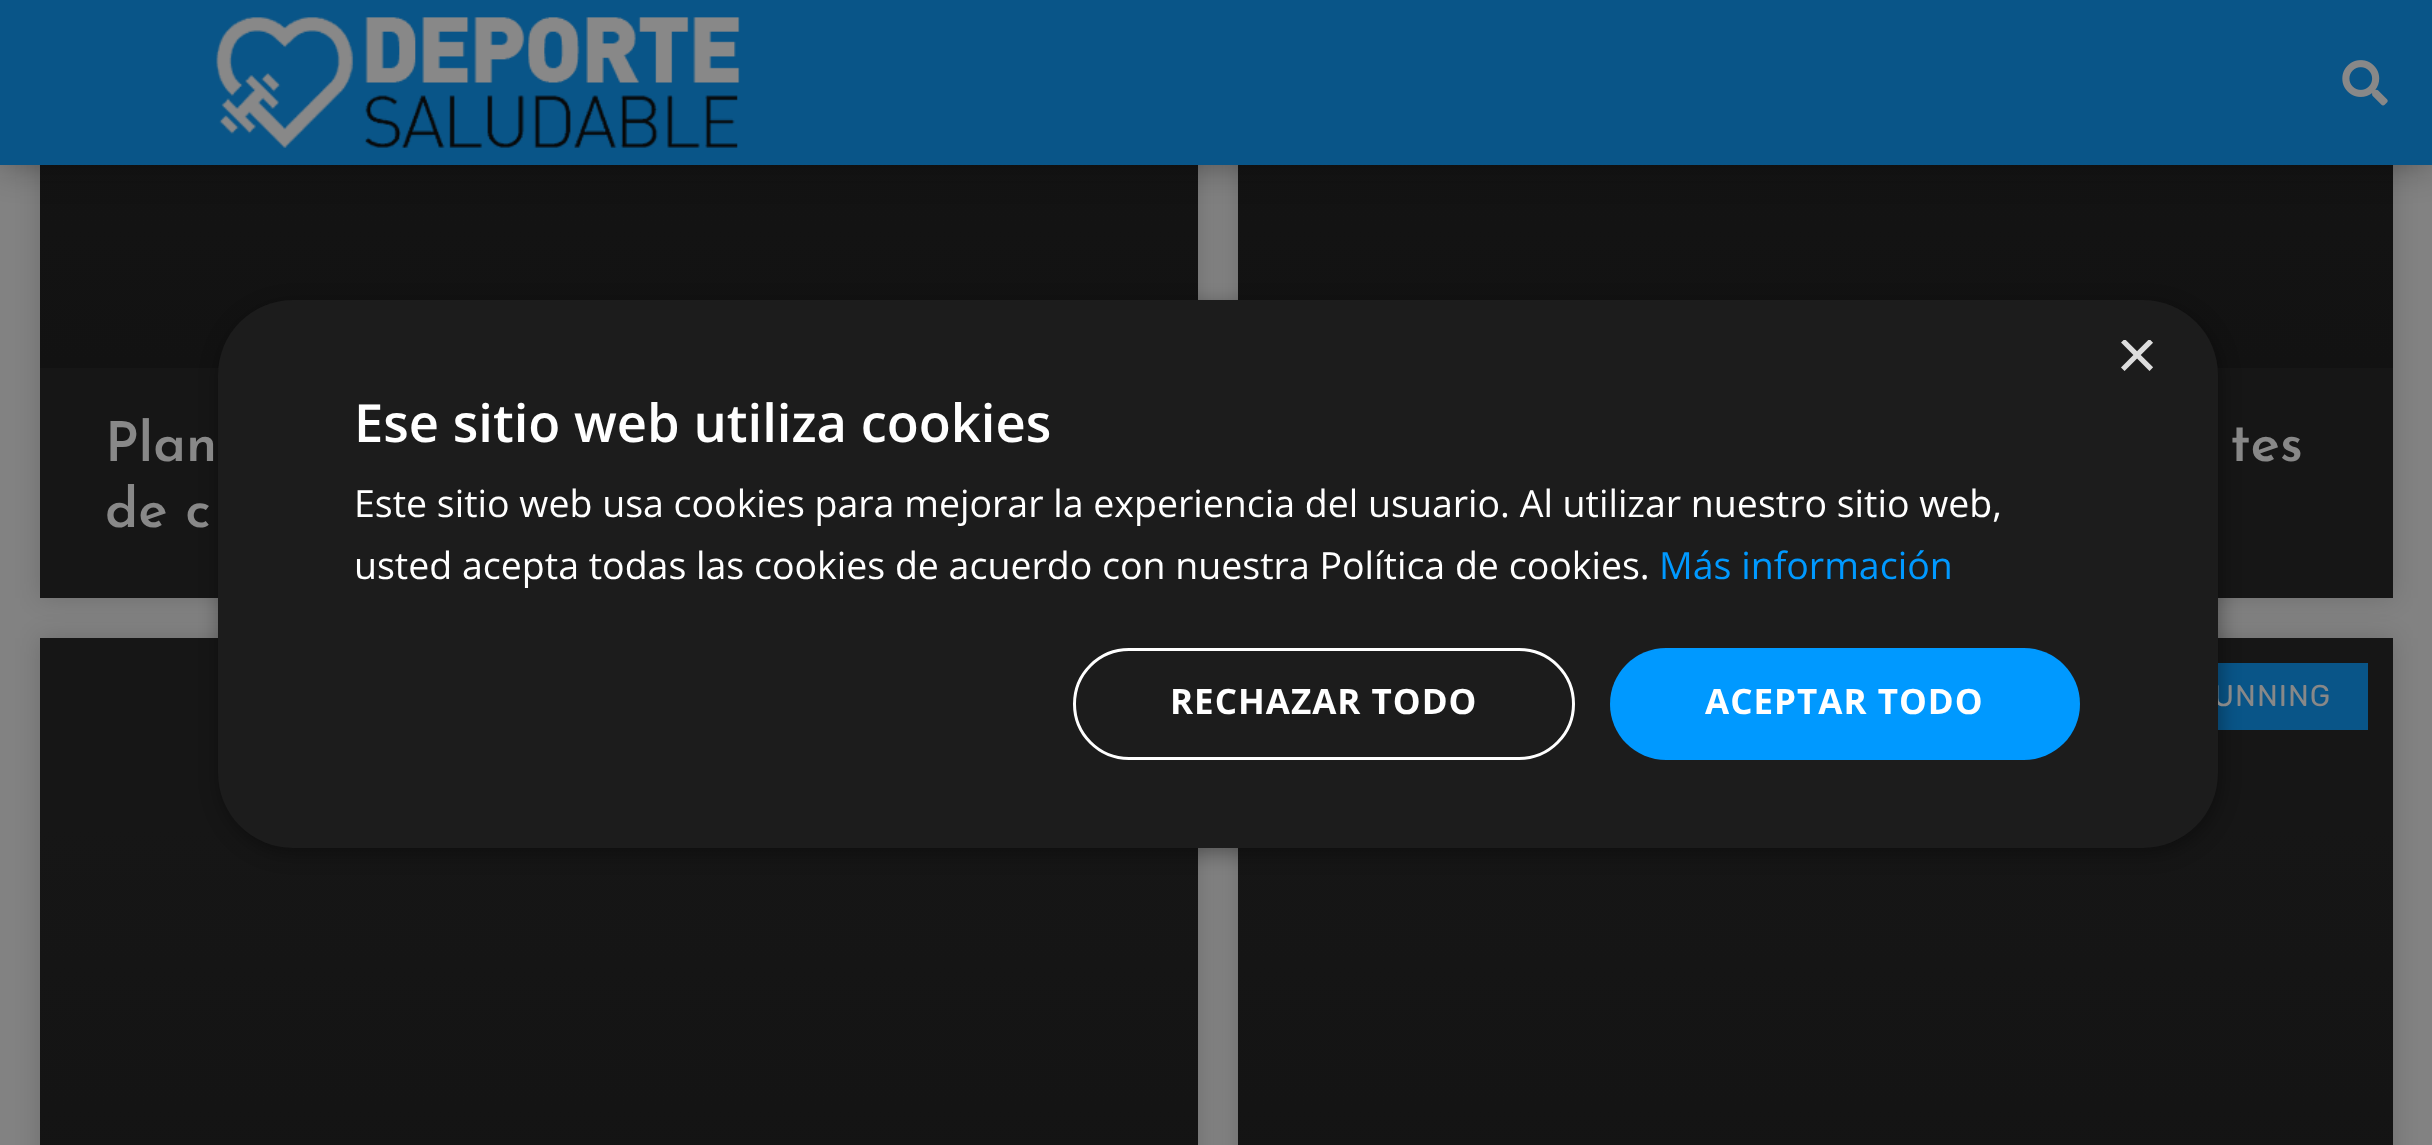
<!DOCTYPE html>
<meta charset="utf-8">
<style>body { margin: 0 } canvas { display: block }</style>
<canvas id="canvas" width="2432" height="1145"></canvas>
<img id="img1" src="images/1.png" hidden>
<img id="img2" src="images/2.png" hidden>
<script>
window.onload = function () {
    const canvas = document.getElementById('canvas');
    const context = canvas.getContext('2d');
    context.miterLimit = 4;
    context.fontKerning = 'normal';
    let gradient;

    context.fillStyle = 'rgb(130, 130, 130)';
    context.fillRect(0, 0, 2432, 1145);
    context.fillStyle = 'rgba(9, 9, 9, 0.15)';
    context.filter = 'blur(12.5px)';
    context.beginPath();
    context.rect(40, -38, 1158, 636);
    context.fill();
    context.filter = 'none';
    gradient = context.createLinearGradient(619, 368, 619, -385);
    gradient.addColorStop(0, 'rgb(18, 18, 18)');
    gradient.addColorStop(0.75, 'rgb(22, 22, 22)');
    context.fillStyle = gradient;
    context.fillRect(40, 165, 1158, 203);
    context.fillStyle = 'rgba(9, 9, 9, 0.15)';
    context.filter = 'blur(12.5px)';
    context.beginPath();
    context.rect(1238, -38, 1155, 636);
    context.fill();
    context.filter = 'none';
    gradient = context.createLinearGradient(1815, 368, 1815, -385);
    gradient.addColorStop(0, 'rgb(18, 18, 18)');
    gradient.addColorStop(0.75, 'rgb(22, 22, 22)');
    context.fillStyle = gradient;
    context.fillRect(1238, 165, 1155, 203);
    context.fillStyle = 'rgba(9, 9, 9, 0.36)';
    context.filter = 'blur(17.5px)';
    context.beginPath();
    context.rect(0, 0, 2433, 165);
    context.fill();
    context.filter = 'none';
    context.fillStyle = 'rgb(9, 85, 136)';
    context.fillRect(0, 0, 2432, 165);
    context.drawImage(document.getElementById('img1'), 216, 17, 524, 131);
    context.drawImage(document.getElementById('img2'), 2342, 60, 46, 46);
    context.fillStyle = 'rgb(22, 22, 22)';
    context.fillRect(40, 368, 179, 230);
    context.fillRect(2217, 368, 176, 230);
    context.fillStyle = 'rgba(9, 9, 9, 0.15)';
    context.filter = 'blur(12.5px)';
    context.beginPath();
    context.rect(40, 638, 1158, 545);
    context.fill();
    context.filter = 'none';
    gradient = context.createLinearGradient(619, 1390, 619, 638);
    gradient.addColorStop(0, 'rgb(18, 18, 18)');
    gradient.addColorStop(0.75, 'rgb(22, 22, 22)');
    context.fillStyle = gradient;
    context.fillRect(40, 638, 1158, 507);
    context.fillStyle = 'rgba(9, 9, 9, 0.15)';
    context.filter = 'blur(12.5px)';
    context.beginPath();
    context.rect(1238, 638, 1155, 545);
    context.fill();
    context.filter = 'none';
    gradient = context.createLinearGradient(1815, 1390, 1815, 638);
    gradient.addColorStop(0, 'rgb(18, 18, 18)');
    gradient.addColorStop(0.75, 'rgb(22, 22, 22)');
    context.fillStyle = gradient;
    context.fillRect(1238, 638, 1155, 507);
    context.fillStyle = 'rgb(9, 85, 136)';
    context.fillRect(2218, 663, 150, 67);
    context.fillStyle = 'rgba(0, 0, 0, 0.35)';
    context.filter = 'blur(10px)';
    context.beginPath();
    context.roundRect(220, 305, 2000, 548, 75);
    context.fill();
    context.filter = 'none';
    context.font = '600 55px Josefin Sans';
    context.fillStyle = 'rgb(136, 136, 136)';
    context.fillText('Plan', 105, 461);
    context.fillText('de c', 105, 527);
    context.fillText('tes', 2230, 461);
    context.letterSpacing = '1px';
    context.font = '30px Rubik';
    context.fillText('UNNING', 2213, 706);
    context.fillStyle = 'rgb(28, 28, 28)';
    context.beginPath();
    context.roundRect(218, 300, 2000, 548, 75);
    context.fill();
    context.save();
    context.beginPath();
    context.rect(2118, 340, 37, 38);
    context.clip();
    context.letterSpacing = '0px';
    context.font = '72px Liberation Sans';
    context.fillStyle = 'rgb(221, 221, 221)';
    context.fillText('×', 2116, 379);
    context.restore();
    context.letterSpacing = '0px';
    context.font = '600 52.5px Open Sans';
    context.fillStyle = 'rgb(255, 255, 255)';
    context.fillText('Ese sitio web utiliza cookies', 354, 442);
    context.beginPath();
    context.roundRect(1074.5, 649.5, 499, 109, 54.5);
    context.strokeStyle = 'rgb(255, 255, 255)';
    context.lineWidth = 3;
    context.stroke();
    context.letterSpacing = '1px';
    context.font = 'bold 35px Open Sans';
    context.fillText('RECHAZAR TODO', 1170, 714);
    context.fillStyle = 'rgb(0, 153, 255)';
    context.beginPath();
    context.roundRect(1610, 648, 470, 112, 56);
    context.fill();
    context.fillStyle = 'rgb(255, 255, 255)';
    context.fillText('ACEPTAR TODO', 1705, 714);
    context.letterSpacing = '0px';
    context.font = '37.5px Open Sans';
    context.fillStyle = 'rgb(0, 153, 255)';
    context.fillText('Más información', 1659, 579);
    context.fillStyle = 'rgb(255, 255, 255)';
    context.fillText('usted acepta todas las cookies de acuerdo con nuestra Política de cookies.', 354, 579);
    context.fillText('Este sitio web usa cookies para mejorar la experiencia del usuario. Al utilizar nuestro sitio web,', 354, 517);
};
</script>
